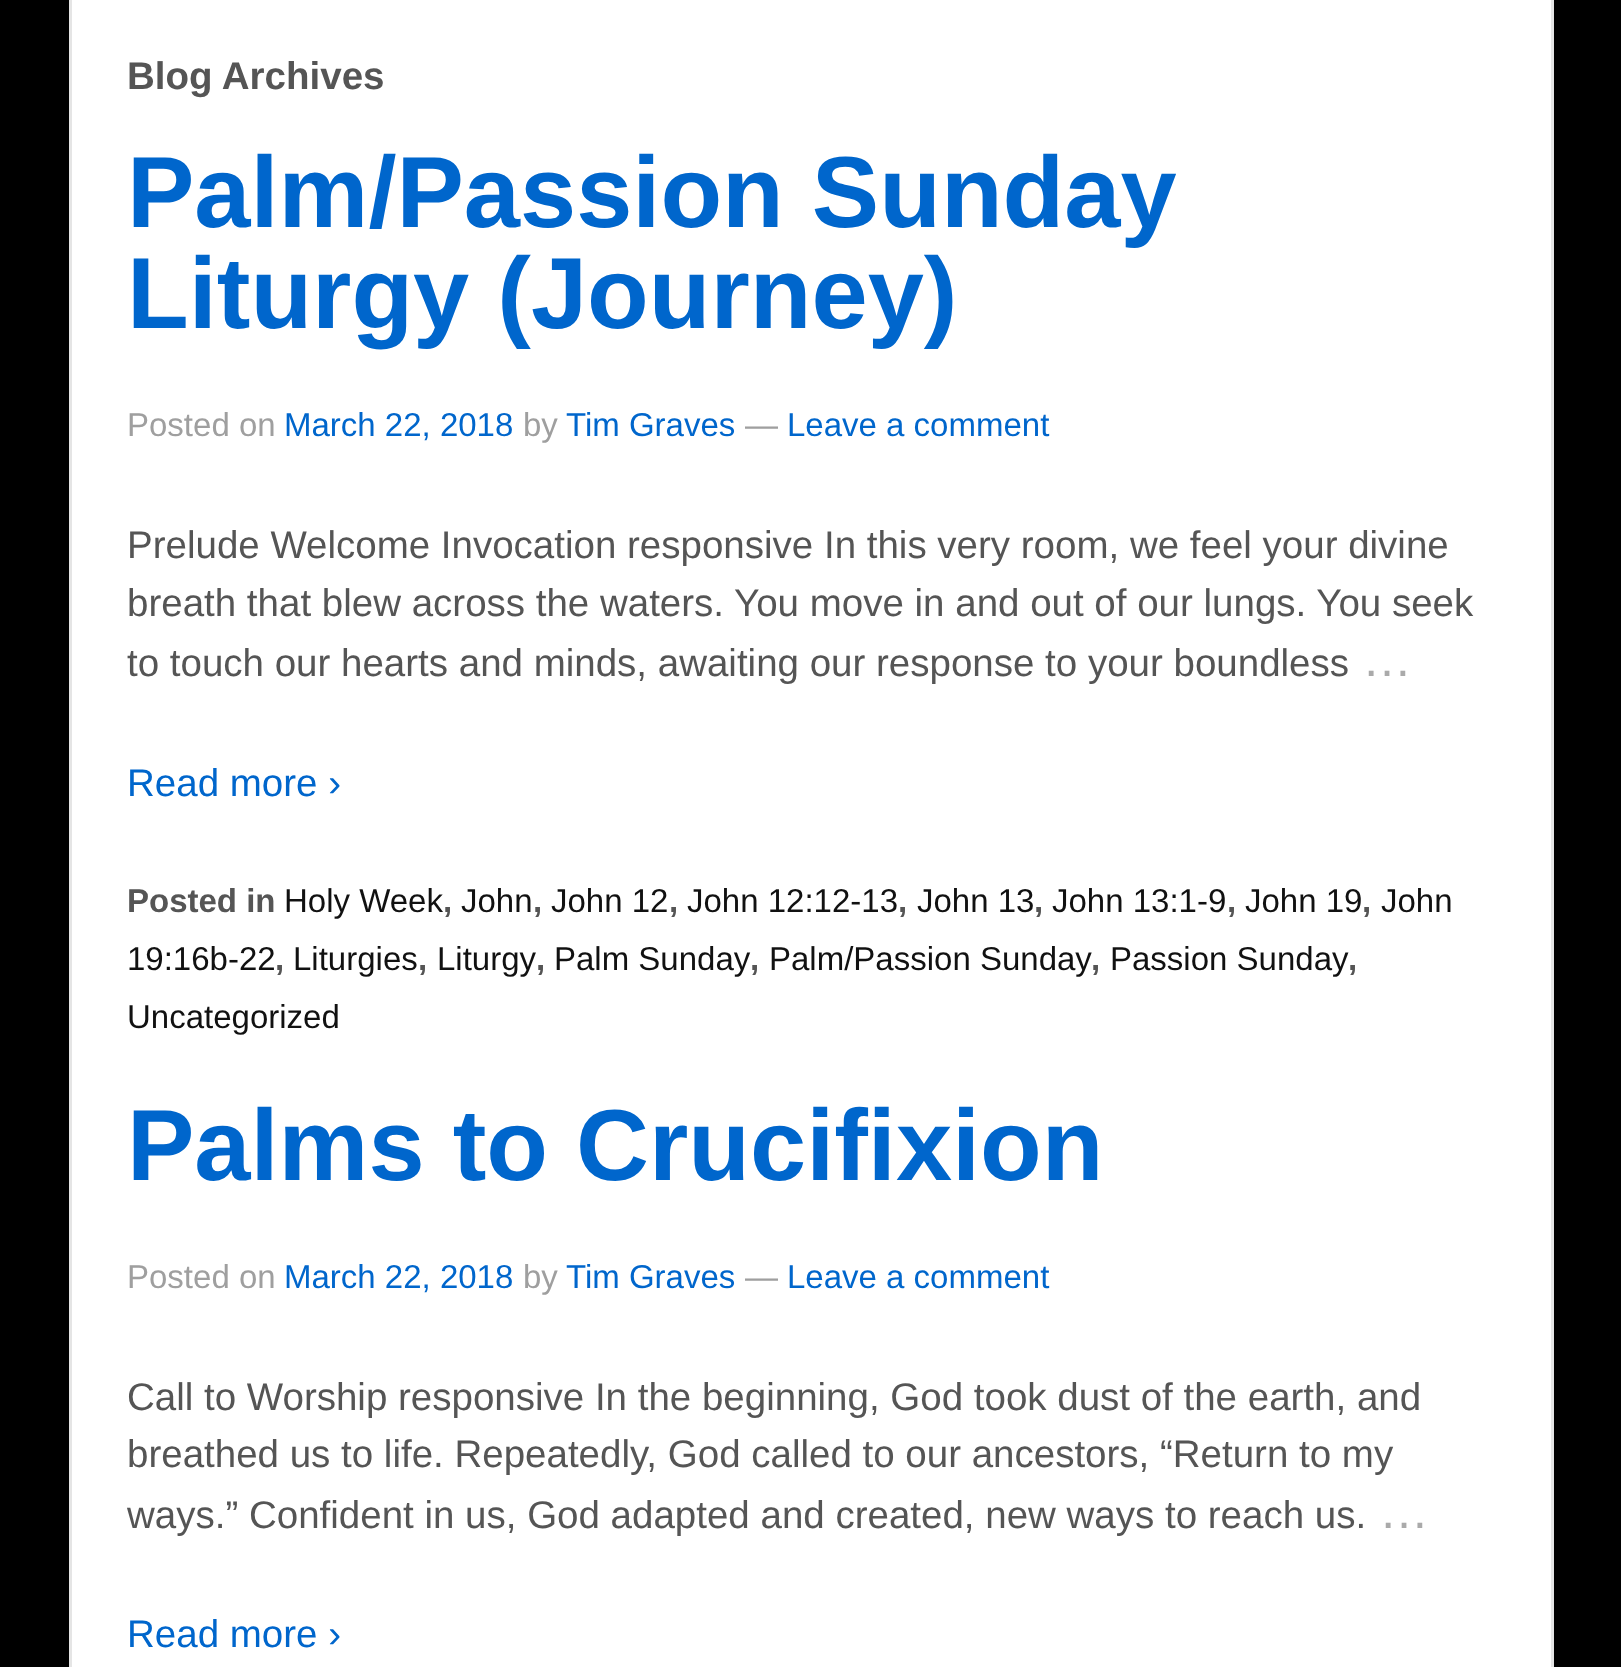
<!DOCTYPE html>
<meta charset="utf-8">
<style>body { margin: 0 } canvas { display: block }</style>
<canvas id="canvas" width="1621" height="1667"></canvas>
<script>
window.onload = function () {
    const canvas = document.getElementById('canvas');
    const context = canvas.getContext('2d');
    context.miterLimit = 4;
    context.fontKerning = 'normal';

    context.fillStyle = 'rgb(0, 0, 0)';
    context.fillRect(0, 0, 1621, 1667);
    context.fillStyle = 'rgb(255, 255, 255)';
    context.beginPath();
    context.rect(70.5, -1.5, 1482, 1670);
    context.fill();
    context.strokeStyle = 'rgb(229, 229, 229)';
    context.lineWidth = 3;
    context.stroke();
    context.font = 'bold 38.5px Liberation Sans';
    context.fillStyle = 'rgb(85, 85, 85)';
    context.fillText('Blog Archives', 127, 89);
    context.font = 'bold 101px Liberation Sans';
    context.fillStyle = 'rgb(0, 102, 204)';
    context.fillText('Palm/Passion Sunday', 127, 227);
    context.fillText('Liturgy (Journey)', 127, 328);
    context.font = '33px Liberation Sans';
    context.fillStyle = 'rgb(159, 159, 159)';
    context.fillText('Posted on', 127, 436);
    context.fillStyle = 'rgb(0, 102, 204)';
    context.fillText('March 22, 2018', 284, 436);
    context.fillStyle = 'rgb(159, 159, 159)';
    context.fillText('by', 523, 436);
    context.fillStyle = 'rgb(0, 102, 204)';
    context.fillText('Tim Graves', 566, 436);
    context.fillStyle = 'rgb(159, 159, 159)';
    context.fillText('—', 745, 436);
    context.fillStyle = 'rgb(0, 102, 204)';
    context.fillText('Leave a comment', 787, 436);
    context.font = '38.5px Liberation Sans';
    context.fillStyle = 'rgb(85, 85, 85)';
    context.fillText('Prelude Welcome Invocation responsive In this very room, we feel your divine', 127, 558);
    context.fillText('breath that blew across the waters. You move in and out of our lungs. You seek', 127, 616);
    context.fillText('to touch our hearts and minds, awaiting our response to your boundless', 127, 676);
    context.font = '50px Liberation Sans';
    context.fillStyle = 'rgb(170, 170, 170)';
    context.fillText('…', 1362, 676);
    context.font = '38.5px Liberation Sans';
    context.fillStyle = 'rgb(0, 102, 204)';
    context.fillText('Read more ›', 127, 796);
    context.font = 'bold 33px Liberation Sans';
    context.fillStyle = 'rgb(85, 85, 85)';
    context.fillText('Posted in', 127, 912);
    context.font = '33px Liberation Sans';
    context.fillStyle = 'rgb(17, 17, 17)';
    context.fillText('Holy Week', 284, 912);
    context.font = 'bold 33px Liberation Sans';
    context.fillStyle = 'rgb(85, 85, 85)';
    context.fillText(',', 443, 912);
    context.font = '33px Liberation Sans';
    context.fillStyle = 'rgb(17, 17, 17)';
    context.fillText('John', 461, 912);
    context.font = 'bold 33px Liberation Sans';
    context.fillStyle = 'rgb(85, 85, 85)';
    context.fillText(',', 533, 912);
    context.font = '33px Liberation Sans';
    context.fillStyle = 'rgb(17, 17, 17)';
    context.fillText('John 12', 551, 912);
    context.font = 'bold 33px Liberation Sans';
    context.fillStyle = 'rgb(85, 85, 85)';
    context.fillText(',', 669, 912);
    context.font = '33px Liberation Sans';
    context.fillStyle = 'rgb(17, 17, 17)';
    context.fillText('John 12:12-13', 687, 912);
    context.font = 'bold 33px Liberation Sans';
    context.fillStyle = 'rgb(85, 85, 85)';
    context.fillText(',', 898, 912);
    context.font = '33px Liberation Sans';
    context.fillStyle = 'rgb(17, 17, 17)';
    context.fillText('John 13', 917, 912);
    context.font = 'bold 33px Liberation Sans';
    context.fillStyle = 'rgb(85, 85, 85)';
    context.fillText(',', 1034, 912);
    context.font = '33px Liberation Sans';
    context.fillStyle = 'rgb(17, 17, 17)';
    context.fillText('John 13:1-9', 1052, 912);
    context.font = 'bold 33px Liberation Sans';
    context.fillStyle = 'rgb(85, 85, 85)';
    context.fillText(',', 1227, 912);
    context.font = '33px Liberation Sans';
    context.fillStyle = 'rgb(17, 17, 17)';
    context.fillText('John 19', 1245, 912);
    context.font = 'bold 33px Liberation Sans';
    context.fillStyle = 'rgb(85, 85, 85)';
    context.fillText(',', 1362, 912);
    context.font = '33px Liberation Sans';
    context.fillStyle = 'rgb(17, 17, 17)';
    context.fillText('John', 1381, 912);
    context.fillText('19:16b-22', 127, 970);
    context.font = 'bold 33px Liberation Sans';
    context.fillStyle = 'rgb(85, 85, 85)';
    context.fillText(',', 275, 970);
    context.font = '33px Liberation Sans';
    context.fillStyle = 'rgb(17, 17, 17)';
    context.fillText('Liturgies', 293, 970);
    context.font = 'bold 33px Liberation Sans';
    context.fillStyle = 'rgb(85, 85, 85)';
    context.fillText(',', 418, 970);
    context.font = '33px Liberation Sans';
    context.fillStyle = 'rgb(17, 17, 17)';
    context.fillText('Liturgy', 437, 970);
    context.font = 'bold 33px Liberation Sans';
    context.fillStyle = 'rgb(85, 85, 85)';
    context.fillText(',', 536, 970);
    context.font = '33px Liberation Sans';
    context.fillStyle = 'rgb(17, 17, 17)';
    context.fillText('Palm Sunday', 554, 970);
    context.font = 'bold 33px Liberation Sans';
    context.fillStyle = 'rgb(85, 85, 85)';
    context.fillText(',', 750, 970);
    context.font = '33px Liberation Sans';
    context.fillStyle = 'rgb(17, 17, 17)';
    context.fillText('Palm/Passion Sunday', 769, 970);
    context.font = 'bold 33px Liberation Sans';
    context.fillStyle = 'rgb(85, 85, 85)';
    context.fillText(',', 1091, 970);
    context.font = '33px Liberation Sans';
    context.fillStyle = 'rgb(17, 17, 17)';
    context.fillText('Passion Sunday', 1110, 970);
    context.font = 'bold 33px Liberation Sans';
    context.fillStyle = 'rgb(85, 85, 85)';
    context.fillText(',', 1348, 970);
    context.font = '33px Liberation Sans';
    context.fillStyle = 'rgb(17, 17, 17)';
    context.fillText('Uncategorized', 127, 1028);
    context.font = 'bold 101px Liberation Sans';
    context.fillStyle = 'rgb(0, 102, 204)';
    context.fillText('Palms to Crucifixion', 127, 1180);
    context.font = '33px Liberation Sans';
    context.fillStyle = 'rgb(159, 159, 159)';
    context.fillText('Posted on', 127, 1288);
    context.fillStyle = 'rgb(0, 102, 204)';
    context.fillText('March 22, 2018', 284, 1288);
    context.fillStyle = 'rgb(159, 159, 159)';
    context.fillText('by', 523, 1288);
    context.fillStyle = 'rgb(0, 102, 204)';
    context.fillText('Tim Graves', 566, 1288);
    context.fillStyle = 'rgb(159, 159, 159)';
    context.fillText('—', 745, 1288);
    context.fillStyle = 'rgb(0, 102, 204)';
    context.fillText('Leave a comment', 787, 1288);
    context.font = '38.5px Liberation Sans';
    context.fillStyle = 'rgb(85, 85, 85)';
    context.fillText('Call to Worship responsive In the beginning, God took dust of the earth, and', 127, 1410);
    context.fillText('breathed us to life. Repeatedly, God called to our ancestors, “Return to my', 127, 1467);
    context.fillText('ways.” Confident in us, God adapted and created, new ways to reach us.', 127, 1528);
    context.font = '50px Liberation Sans';
    context.fillStyle = 'rgb(170, 170, 170)';
    context.fillText('…', 1379, 1528);
    context.font = '38.5px Liberation Sans';
    context.fillStyle = 'rgb(0, 102, 204)';
    context.fillText('Read more ›', 127, 1647);
};
</script>
